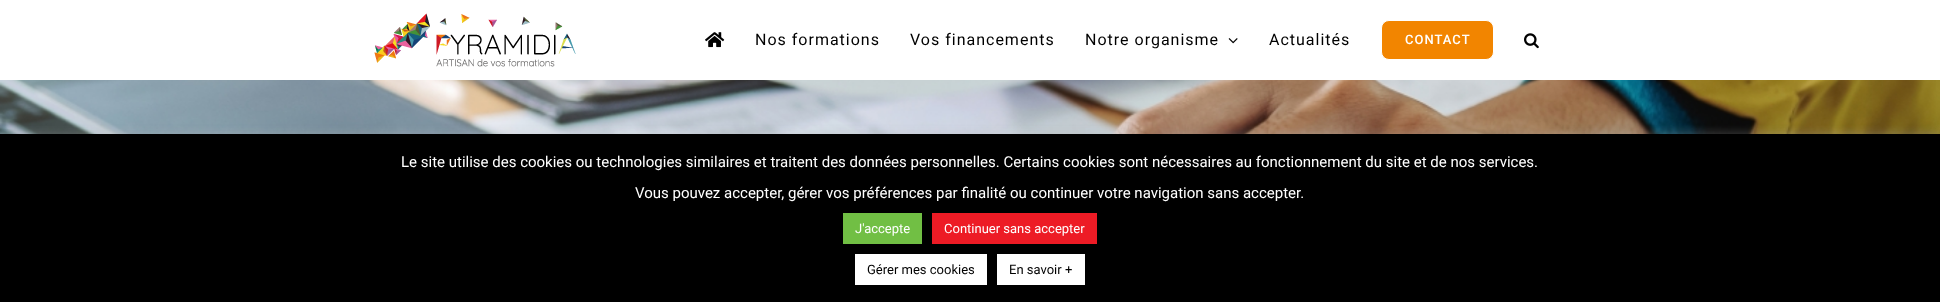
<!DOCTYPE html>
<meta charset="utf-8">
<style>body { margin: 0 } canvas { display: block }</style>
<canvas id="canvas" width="1940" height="302"></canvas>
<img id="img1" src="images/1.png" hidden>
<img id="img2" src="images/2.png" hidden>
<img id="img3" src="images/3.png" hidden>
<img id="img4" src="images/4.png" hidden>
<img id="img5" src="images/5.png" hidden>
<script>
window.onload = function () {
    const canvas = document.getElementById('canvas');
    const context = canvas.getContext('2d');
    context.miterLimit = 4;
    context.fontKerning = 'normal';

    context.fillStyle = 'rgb(255, 255, 255)';
    context.fillRect(0, 0, 1940, 302);
    context.drawImage(document.getElementById('img1'), 374, 13, 202, 54);
    context.drawImage(document.getElementById('img2'), 705, 32, 20, 16);
    context.drawImage(document.getElementById('img3'), 1228, 38, 10, 6);
    context.fillStyle = 'rgb(242, 133, 0)';
    context.beginPath();
    context.roundRect(1381.5, 20.5, 112, 39, 7.5);
    context.fill();
    context.strokeStyle = 'rgb(255, 255, 255)';
    context.stroke();
    context.drawImage(document.getElementById('img4'), 1524, 33, 15, 16);
    context.drawImage(document.getElementById('img5'), 0, 80, 1940, 54);
    context.fillStyle = 'rgba(172, 171, 171, 0.3)';
    context.filter = 'blur(5px)';
    context.beginPath();
    context.rect(0, 133, 1940, 168);
    context.fill();
    context.filter = 'none';
    context.fillStyle = 'rgb(0, 0, 0)';
    context.fillRect(0, 134, 1940, 168);
    context.fillStyle = 'rgb(113, 191, 68)';
    context.fillRect(843, 213, 79, 31);
    context.fillStyle = 'rgb(237, 27, 37)';
    context.fillRect(932, 213, 165, 31);
    context.fillStyle = 'rgb(255, 255, 255)';
    context.fillRect(855, 254, 132, 31);
    context.fillRect(997, 254, 88, 31);
    context.letterSpacing = '1px';
    context.font = '16px Roboto';
    context.fillStyle = 'rgb(0, 0, 0)';
    context.fillText('Nos formations', 755, 45);
    context.fillText('Vos financements', 910, 45);
    context.fillText('Notre organisme', 1085, 45);
    context.fillText('Actualités', 1269, 45);
    context.font = '500 13px Roboto';
    context.fillStyle = 'rgb(255, 255, 255)';
    context.fillText('CONTACT', 1405, 44);
    context.letterSpacing = '0px';
    context.font = '15px Roboto';
    context.fillText('Le site utilise des cookies ou technologies similaires et traitent des données personnelles. Certains cookies sont nécessaires au fonctionnement du site et de nos services.', 401, 167);
    context.fillText('Vous pouvez accepter, gérer vos préférences par finalité ou continuer votre navigation sans accepter.', 635, 198);
    context.font = '13px Roboto';
    context.fillText('J\'accepte', 855, 233);
    context.fillText('Continuer sans accepter', 944, 233);
    context.fillStyle = 'rgb(0, 0, 0)';
    context.fillText('Gérer mes cookies', 867, 274);
    context.fillText('En savoir +', 1009, 274);
};
</script>
